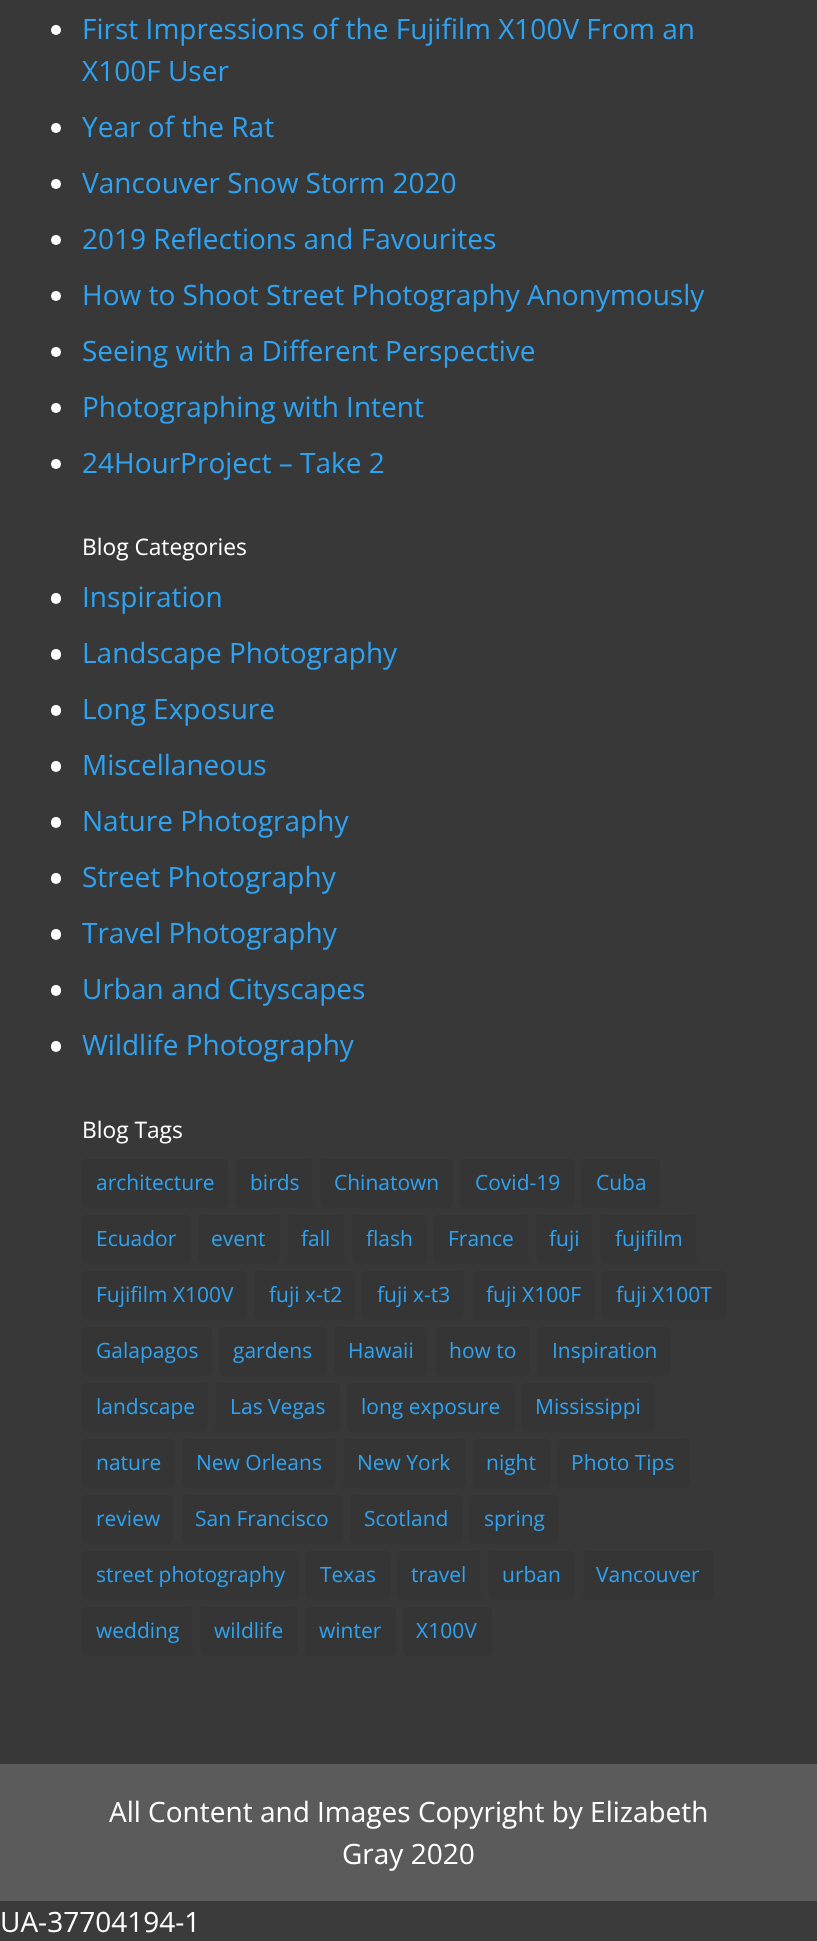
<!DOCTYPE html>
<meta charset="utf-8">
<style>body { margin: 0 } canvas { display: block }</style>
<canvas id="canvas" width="817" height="1941"></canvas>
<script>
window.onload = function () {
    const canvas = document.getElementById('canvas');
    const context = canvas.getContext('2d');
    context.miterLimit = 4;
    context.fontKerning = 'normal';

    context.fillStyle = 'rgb(59, 59, 59)';
    context.fillRect(0, 0, 817, 1941);
    context.fillStyle = 'rgb(56, 56, 56)';
    context.fillRect(0, 0, 817, 1764);
    context.fillStyle = 'rgb(255, 255, 255)';
    context.beginPath();
    context.arc(56, 30, 5, 0, 2 * Math.PI);
    context.fill();
    context.beginPath();
    context.arc(56, 128, 5, 0, 2 * Math.PI);
    context.fill();
    context.beginPath();
    context.arc(56, 184, 5, 0, 2 * Math.PI);
    context.fill();
    context.beginPath();
    context.arc(56, 240, 5, 0, 2 * Math.PI);
    context.fill();
    context.beginPath();
    context.arc(56, 296, 5, 0, 2 * Math.PI);
    context.fill();
    context.beginPath();
    context.arc(56, 352, 5, 0, 2 * Math.PI);
    context.fill();
    context.beginPath();
    context.arc(56, 408, 5, 0, 2 * Math.PI);
    context.fill();
    context.beginPath();
    context.arc(56, 464, 5, 0, 2 * Math.PI);
    context.fill();
    context.beginPath();
    context.roundRect(51, 593, 10, 11, 5);
    context.fill();
    context.beginPath();
    context.roundRect(51, 649, 10, 11, 5);
    context.fill();
    context.beginPath();
    context.roundRect(51, 705, 10, 11, 5);
    context.fill();
    context.beginPath();
    context.roundRect(51, 761, 10, 11, 5);
    context.fill();
    context.beginPath();
    context.roundRect(51, 817, 10, 11, 5);
    context.fill();
    context.beginPath();
    context.roundRect(51, 873, 10, 11, 5);
    context.fill();
    context.beginPath();
    context.roundRect(51, 929, 10, 11, 5);
    context.fill();
    context.beginPath();
    context.roundRect(51, 985, 10, 11, 5);
    context.fill();
    context.beginPath();
    context.roundRect(51, 1041, 10, 11, 5);
    context.fill();
    context.fillStyle = 'rgb(53, 53, 53)';
    context.beginPath();
    context.roundRect(82, 1159, 146, 49, 5);
    context.fill();
    context.beginPath();
    context.roundRect(236, 1159, 77, 49, 5);
    context.fill();
    context.beginPath();
    context.roundRect(320, 1159, 133, 49, 5);
    context.fill();
    context.beginPath();
    context.roundRect(460, 1159, 114, 49, 5);
    context.fill();
    context.beginPath();
    context.roundRect(581, 1159, 79, 49, 5);
    context.fill();
    context.beginPath();
    context.roundRect(82, 1215, 109, 49, 5);
    context.fill();
    context.beginPath();
    context.roundRect(198, 1215, 82, 49, 5);
    context.fill();
    context.beginPath();
    context.roundRect(287, 1215, 58, 49, 5);
    context.fill();
    context.beginPath();
    context.roundRect(352, 1215, 75, 49, 5);
    context.fill();
    context.beginPath();
    context.roundRect(434, 1215, 95, 49, 5);
    context.fill();
    context.beginPath();
    context.roundRect(536, 1215, 57, 49, 5);
    context.fill();
    context.beginPath();
    context.roundRect(600, 1215, 97, 49, 5);
    context.fill();
    context.beginPath();
    context.roundRect(82, 1271, 165, 49, 5);
    context.fill();
    context.beginPath();
    context.roundRect(254, 1271, 101, 49, 5);
    context.fill();
    context.beginPath();
    context.roundRect(362, 1271, 102, 49, 5);
    context.fill();
    context.beginPath();
    context.roundRect(473, 1271, 122, 49, 5);
    context.fill();
    context.beginPath();
    context.roundRect(602, 1271, 124, 49, 5);
    context.fill();
    context.beginPath();
    context.roundRect(82, 1327, 130, 49, 5);
    context.fill();
    context.beginPath();
    context.roundRect(219, 1327, 108, 49, 5);
    context.fill();
    context.beginPath();
    context.roundRect(334, 1327, 93, 49, 5);
    context.fill();
    context.beginPath();
    context.roundRect(436, 1327, 94, 49, 5);
    context.fill();
    context.beginPath();
    context.roundRect(537, 1327, 133, 49, 5);
    context.fill();
    context.beginPath();
    context.roundRect(82, 1383, 126, 49, 5);
    context.fill();
    context.beginPath();
    context.roundRect(215, 1383, 125, 49, 5);
    context.fill();
    context.beginPath();
    context.roundRect(347, 1383, 168, 49, 5);
    context.fill();
    context.beginPath();
    context.roundRect(522, 1383, 133, 49, 5);
    context.fill();
    context.beginPath();
    context.roundRect(82, 1439, 93, 49, 5);
    context.fill();
    context.beginPath();
    context.roundRect(182, 1439, 154, 49, 5);
    context.fill();
    context.beginPath();
    context.roundRect(343, 1439, 123, 49, 5);
    context.fill();
    context.beginPath();
    context.roundRect(473, 1439, 77, 49, 5);
    context.fill();
    context.beginPath();
    context.roundRect(557, 1439, 133, 49, 5);
    context.fill();
    context.beginPath();
    context.roundRect(82, 1495, 91, 49, 5);
    context.fill();
    context.beginPath();
    context.roundRect(182, 1495, 161, 49, 5);
    context.fill();
    context.beginPath();
    context.roundRect(350, 1495, 112, 49, 5);
    context.fill();
    context.beginPath();
    context.roundRect(469, 1495, 89, 49, 5);
    context.fill();
    context.beginPath();
    context.roundRect(82, 1551, 217, 49, 5);
    context.fill();
    context.beginPath();
    context.roundRect(306, 1551, 84, 49, 5);
    context.fill();
    context.beginPath();
    context.roundRect(397, 1551, 84, 49, 5);
    context.fill();
    context.beginPath();
    context.roundRect(488, 1551, 86, 49, 5);
    context.fill();
    context.beginPath();
    context.roundRect(583, 1551, 131, 49, 5);
    context.fill();
    context.beginPath();
    context.roundRect(82, 1607, 111, 49, 5);
    context.fill();
    context.beginPath();
    context.roundRect(200, 1607, 98, 49, 5);
    context.fill();
    context.beginPath();
    context.roundRect(305, 1607, 91, 49, 5);
    context.fill();
    context.beginPath();
    context.roundRect(403, 1607, 89, 49, 5);
    context.fill();
    context.fillStyle = 'rgb(91, 91, 91)';
    context.fillRect(0, 1764, 817, 137);
    context.font = '28px Open Sans';
    context.fillStyle = 'rgb(46, 163, 242)';
    context.fillText('First Impressions of the Fujifilm X100V From an', 82, 39);
    context.fillText('X100F User', 82, 81);
    context.fillText('Year of the Rat', 82, 137);
    context.fillText('Vancouver Snow Storm 2020', 82, 193);
    context.fillText('2019 Reflections and Favourites', 82, 249);
    context.fillText('How to Shoot Street Photography Anonymously', 82, 305);
    context.fillText('Seeing with a Different Perspective', 82, 361);
    context.fillText('Photographing with Intent', 82, 417);
    context.fillText('24HourProject – Take 2', 82, 473);
    context.font = '22.75px Open Sans';
    context.fillStyle = 'rgb(255, 255, 255)';
    context.fillText('Blog Categories', 82, 555);
    context.font = '28px Open Sans';
    context.fillStyle = 'rgb(46, 163, 242)';
    context.fillText('Inspiration', 82, 607);
    context.fillText('Landscape Photography', 82, 663);
    context.fillText('Long Exposure', 82, 719);
    context.fillText('Miscellaneous', 82, 775);
    context.fillText('Nature Photography', 82, 831);
    context.fillText('Street Photography', 82, 887);
    context.fillText('Travel Photography', 82, 943);
    context.fillText('Urban and Cityscapes', 82, 999);
    context.fillText('Wildlife Photography', 82, 1055);
    context.font = '22.75px Open Sans';
    context.fillStyle = 'rgb(255, 255, 255)';
    context.fillText('Blog Tags', 82, 1138);
    context.font = '21px Open Sans';
    context.fillStyle = 'rgb(46, 163, 242)';
    context.fillText('architecture', 96, 1190);
    context.fillText('birds', 250, 1190);
    context.fillText('Chinatown', 334, 1190);
    context.fillText('Covid-19', 475, 1190);
    context.fillText('Cuba', 596, 1190);
    context.fillText('Ecuador', 96, 1246);
    context.fillText('event', 211, 1246);
    context.fillText('fall', 301, 1246);
    context.fillText('flash', 366, 1246);
    context.fillText('France', 448, 1246);
    context.fillText('fuji', 549, 1246);
    context.fillText('fujifilm', 615, 1246);
    context.fillText('Fujifilm X100V', 96, 1302);
    context.fillText('fuji x-t2', 269, 1302);
    context.fillText('fuji x-t3', 377, 1302);
    context.fillText('fuji X100F', 486, 1302);
    context.fillText('fuji X100T', 616, 1302);
    context.fillText('Galapagos', 96, 1358);
    context.fillText('gardens', 233, 1358);
    context.fillText('Hawaii', 348, 1358);
    context.fillText('how to', 449, 1358);
    context.fillText('Inspiration', 552, 1358);
    context.fillText('landscape', 96, 1414);
    context.fillText('Las Vegas', 230, 1414);
    context.fillText('long exposure', 361, 1414);
    context.fillText('Mississippi', 535, 1414);
    context.fillText('nature', 96, 1470);
    context.fillText('New Orleans', 196, 1470);
    context.fillText('New York', 357, 1470);
    context.fillText('night', 486, 1470);
    context.fillText('Photo Tips', 571, 1470);
    context.fillText('review', 96, 1526);
    context.fillText('San Francisco', 195, 1526);
    context.fillText('Scotland', 364, 1526);
    context.fillText('spring', 484, 1526);
    context.fillText('street photography', 96, 1582);
    context.fillText('Texas', 320, 1582);
    context.fillText('travel', 411, 1582);
    context.fillText('urban', 502, 1582);
    context.fillText('Vancouver', 596, 1582);
    context.fillText('wedding', 96, 1638);
    context.fillText('wildlife', 214, 1638);
    context.fillText('winter', 319, 1638);
    context.fillText('X100V', 416, 1638);
    context.font = '28px Open Sans';
    context.fillStyle = 'rgb(255, 255, 255)';
    context.fillText('All Content and Images Copyright by Elizabeth', 109, 1822);
    context.fillText('Gray 2020', 342, 1864);
    context.fillText('UA-37704194-1', 0, 1932);
};
</script>
